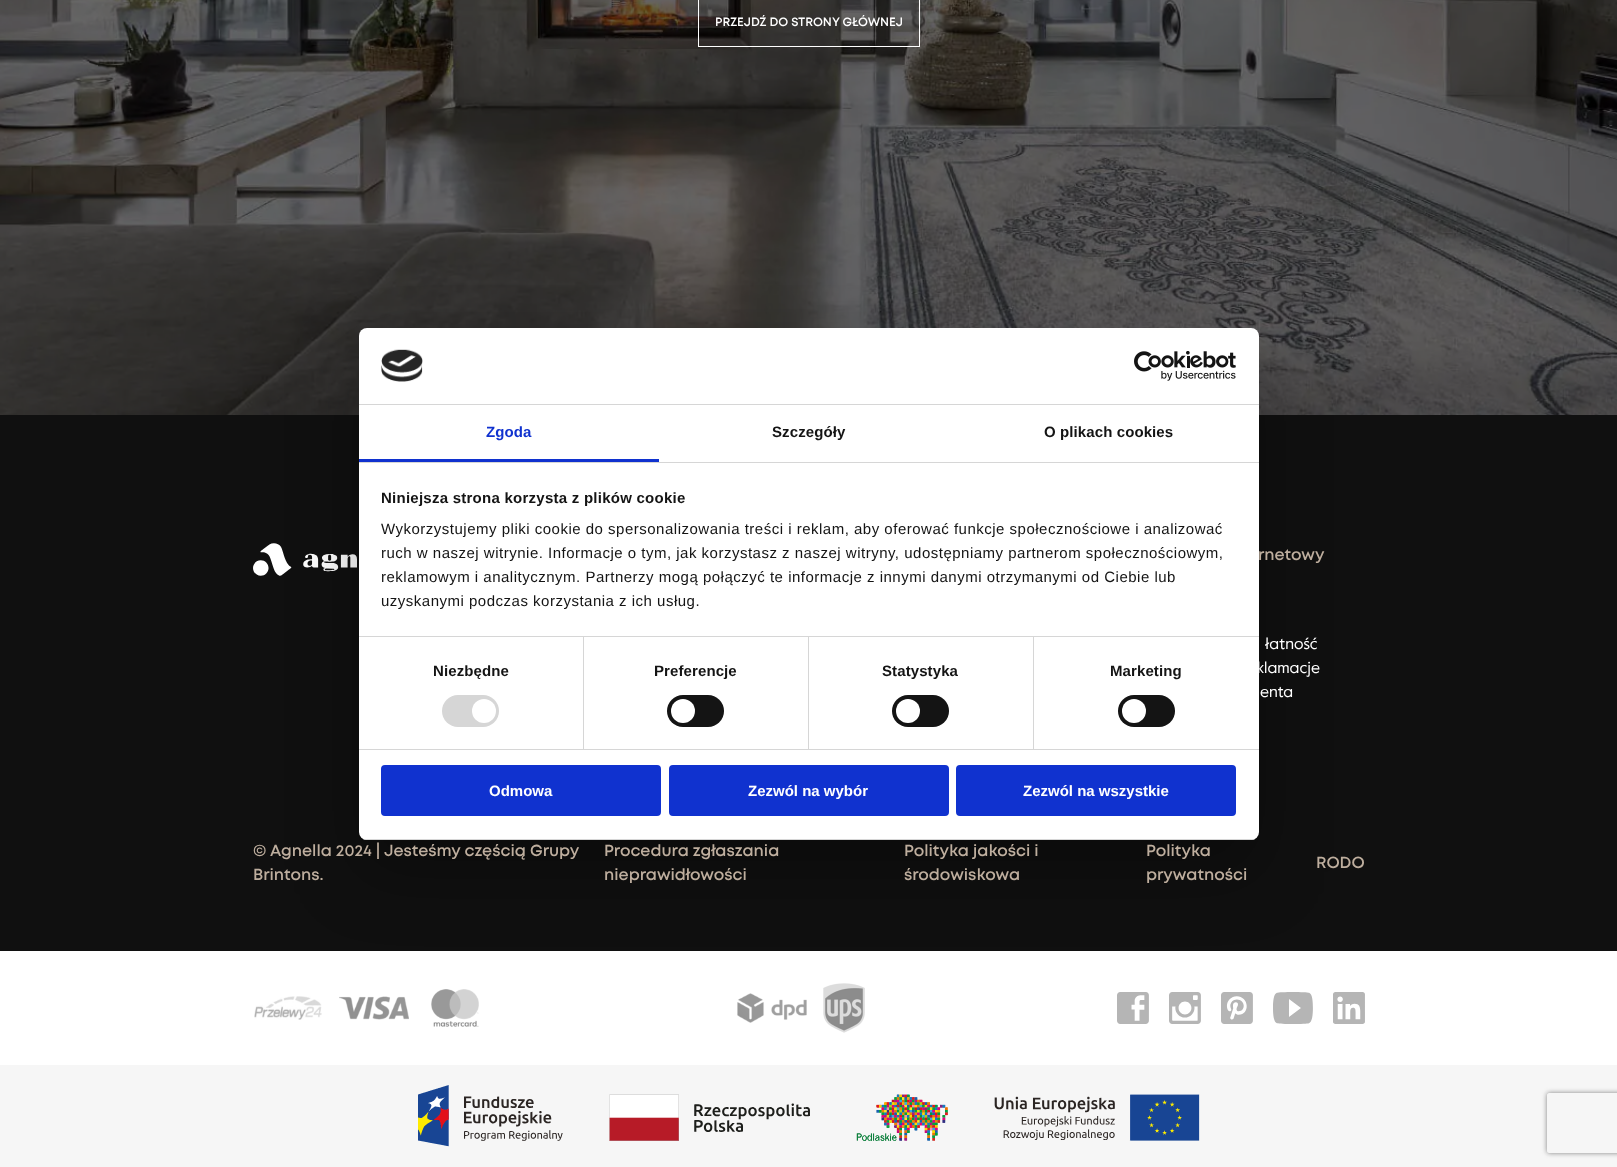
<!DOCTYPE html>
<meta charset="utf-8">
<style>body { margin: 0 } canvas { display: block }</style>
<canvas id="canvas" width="1617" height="1167"></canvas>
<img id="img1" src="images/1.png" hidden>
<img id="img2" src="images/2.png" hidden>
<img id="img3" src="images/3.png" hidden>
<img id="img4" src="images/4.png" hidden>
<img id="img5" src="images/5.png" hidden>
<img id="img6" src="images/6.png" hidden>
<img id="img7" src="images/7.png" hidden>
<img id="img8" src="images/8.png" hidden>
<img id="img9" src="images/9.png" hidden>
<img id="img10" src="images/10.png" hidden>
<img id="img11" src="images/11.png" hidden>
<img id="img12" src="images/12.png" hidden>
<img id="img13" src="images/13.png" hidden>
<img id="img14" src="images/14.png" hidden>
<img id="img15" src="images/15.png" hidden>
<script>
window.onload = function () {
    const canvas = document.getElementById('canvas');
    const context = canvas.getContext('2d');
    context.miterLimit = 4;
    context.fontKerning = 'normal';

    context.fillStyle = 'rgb(255, 255, 255)';
    context.fillRect(0, 0, 1617, 1167);
    context.fillStyle = 'rgb(0, 0, 0)';
    context.fillRect(0, 0, 1617, 415);
    context.drawImage(document.getElementById('img1'), 0, 0, 1617, 415);
    context.strokeStyle = 'rgb(255, 255, 255)';
    context.strokeRect(698.5, -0.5, 221, 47);
    context.fillStyle = 'rgb(16, 16, 16)';
    context.fillRect(0, 415, 1617, 536);
    context.drawImage(document.getElementById('img2'), 253, 543, 104, 33);
    context.drawImage(document.getElementById('img3'), 254, 996, 68, 24);
    context.drawImage(document.getElementById('img4'), 339, 996, 70, 24);
    context.drawImage(document.getElementById('img5'), 431, 989, 48, 38);
    context.drawImage(document.getElementById('img6'), 737, 993, 70, 30);
    context.drawImage(document.getElementById('img7'), 823, 983, 42, 50);
    context.drawImage(document.getElementById('img8'), 1117, 992, 32, 32);
    context.drawImage(document.getElementById('img9'), 1169, 992, 32, 32);
    context.drawImage(document.getElementById('img10'), 1221, 992, 32, 32);
    context.drawImage(document.getElementById('img11'), 1273, 992, 40, 32);
    context.drawImage(document.getElementById('img12'), 1333, 992, 32, 32);
    context.fillStyle = 'rgb(246, 246, 246)';
    context.fillRect(0, 1065, 1617, 102);
    context.drawImage(document.getElementById('img13'), 418, 1085, 782, 62);
    context.fillStyle = 'rgba(0, 0, 0, 0.3)';
    context.filter = 'blur(34px)';
    context.beginPath();
    context.roundRect(359, 360, 900, 512, 8);
    context.fill();
    context.filter = 'none';
    context.fillStyle = 'rgb(255, 255, 255)';
    context.beginPath();
    context.roundRect(359, 328, 900, 512, 8);
    context.fill();
    context.fillStyle = 'rgb(214, 214, 214)';
    context.fillRect(359, 404, 900, 1);
    context.drawImage(document.getElementById('img14'), 381, 349, 42, 33);
    context.drawImage(document.getElementById('img15'), 1134, 351, 102, 30);
    context.fillRect(359, 462, 900, 1);
    context.fillStyle = 'rgb(16, 50, 207)';
    context.fillRect(359, 459, 300, 3);
    context.fillStyle = 'rgb(214, 214, 214)';
    context.fillRect(359, 636, 900, 1);
    context.fillRect(359, 749, 900, 1);
    context.fillRect(583, 637, 1, 112);
    context.beginPath();
    context.roundRect(442, 695, 57, 32, 16);
    context.fill();
    context.fillStyle = 'rgb(255, 255, 255)';
    context.beginPath();
    context.arc(484, 711, 12, 0, 2 * Math.PI);
    context.fill();
    context.fillStyle = 'rgb(214, 214, 214)';
    context.fillRect(808, 637, 1, 112);
    context.fillStyle = 'rgb(20, 20, 20)';
    context.beginPath();
    context.roundRect(667, 695, 57, 32, 16);
    context.fill();
    context.fillStyle = 'rgb(255, 255, 255)';
    context.beginPath();
    context.arc(683, 711, 12, 0, 2 * Math.PI);
    context.fill();
    context.fillStyle = 'rgb(214, 214, 214)';
    context.fillRect(1033, 637, 1, 112);
    context.fillStyle = 'rgb(20, 20, 20)';
    context.beginPath();
    context.roundRect(892, 695, 57, 32, 16);
    context.fill();
    context.fillStyle = 'rgb(255, 255, 255)';
    context.beginPath();
    context.arc(908, 711, 12, 0, 2 * Math.PI);
    context.fill();
    context.fillStyle = 'rgb(20, 20, 20)';
    context.beginPath();
    context.roundRect(1118, 695, 57, 32, 16);
    context.fill();
    context.fillStyle = 'rgb(255, 255, 255)';
    context.beginPath();
    context.arc(1134, 711, 12, 0, 2 * Math.PI);
    context.fill();
    context.save();
    context.beginPath();
    context.roundRect(359, 328, 900, 512, 8);
    context.clip();
    context.fillStyle = 'rgb(214, 214, 214)';
    context.fillRect(359, 839, 900, 1);
    context.restore();
    context.fillStyle = 'rgb(16, 50, 207)';
    context.beginPath();
    context.roundRect(382, 766, 278, 49, 3);
    context.fill();
    context.strokeStyle = 'rgb(16, 50, 207)';
    context.lineWidth = 2;
    context.stroke();
    context.beginPath();
    context.roundRect(670, 766, 278, 49, 3);
    context.fill();
    context.stroke();
    context.beginPath();
    context.roundRect(957, 766, 278, 49, 3);
    context.fill();
    context.stroke();
    context.save();
    context.beginPath();
    context.moveTo(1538, 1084);
    context.lineTo(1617, 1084);
    context.lineTo(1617, 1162);
    context.lineTo(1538, 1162);
    context.closePath();
    context.moveTo(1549, 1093);
    context.lineTo(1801, 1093);
    context.bezierCurveTo(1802, 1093, 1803, 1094, 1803, 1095);
    context.lineTo(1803, 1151);
    context.bezierCurveTo(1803, 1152, 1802, 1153, 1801, 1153);
    context.lineTo(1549, 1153);
    context.bezierCurveTo(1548, 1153, 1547, 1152, 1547, 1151);
    context.lineTo(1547, 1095);
    context.bezierCurveTo(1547, 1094, 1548, 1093, 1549, 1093);
    context.closePath();
    context.clip('evenodd');
    context.fillStyle = 'rgb(128, 128, 128)';
    context.filter = 'blur(2.5px)';
    context.beginPath();
    context.roundRect(1547, 1093, 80, 60, 2);
    context.fill();
    context.filter = 'none';
    context.restore();
    context.font = '12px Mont';
    context.fillStyle = 'rgb(255, 255, 255)';
    context.fillText('PRZEJDŹ DO STRONY GŁÓWNEJ', 715, 26);
    context.font = '16px Mont';
    context.fillStyle = 'rgb(190, 174, 158)';
    context.fillText('rnetowy', 1258, 560);
    context.font = '16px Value';
    context.fillStyle = 'rgb(255, 255, 255)';
    context.fillText('łatność', 1265, 649);
    context.fillText('klamacje', 1257, 673);
    context.fillText('enta', 1260, 697);
    context.font = '16px Mont';
    context.fillStyle = 'rgb(190, 174, 158)';
    context.fillText('© Agnella 2024 | Jesteśmy częścią Grupy', 253, 856);
    context.fillText('Brintons.', 253, 880);
    context.fillText('Procedura zgłaszania', 604, 856);
    context.fillText('nieprawidłowości', 604, 880);
    context.fillText('Polityka jakości i', 904, 856);
    context.fillText('środowiskowa', 904, 880);
    context.fillText('Polityka', 1146, 856);
    context.fillText('prywatności', 1146, 880);
    context.fillText('RODO', 1316, 868);
    context.letterSpacing = '0.1px';
    context.font = 'bold 15px Liberation Sans';
    context.fillStyle = 'rgb(16, 50, 207)';
    context.fillText('Zgoda', 486, 437);
    context.fillStyle = 'rgb(20, 20, 20)';
    context.fillText('Szczegóły', 772, 437);
    context.fillText('O plikach cookies', 1044, 437);
    context.letterSpacing = '0.25px';
    context.fillText('Niniejsza strona korzysta z plików cookie', 381, 503);
    context.letterSpacing = '0.5px';
    context.font = '15px Liberation Sans';
    context.fillText('Wykorzystujemy pliki cookie do spersonalizowania treści i reklam, aby oferować funkcje społecznościowe i analizować', 381, 534);
    context.fillText('ruch w naszej witrynie. Informacje o tym, jak korzystasz z naszej witryny, udostępniamy partnerom społecznościowym,', 381, 558);
    context.fillText('reklamowym i analitycznym. Partnerzy mogą połączyć te informacje z innymi danymi otrzymanymi od Ciebie lub', 381, 582);
    context.fillText('uzyskanymi podczas korzystania z ich usług.', 381, 606);
    context.letterSpacing = '0.1px';
    context.font = 'bold 15px Liberation Sans';
    context.fillText('Niezbędne', 433, 676);
    context.fillText('Preferencje', 654, 676);
    context.fillText('Statystyka', 882, 676);
    context.fillText('Marketing', 1110, 676);
    context.letterSpacing = '0px';
    context.fillStyle = 'rgb(255, 255, 255)';
    context.fillText('Odmowa', 489, 796);
    context.fillText('Zezwól na wybór', 748, 796);
    context.fillText('Zezwól na wszystkie', 1023, 796);
};
</script>
